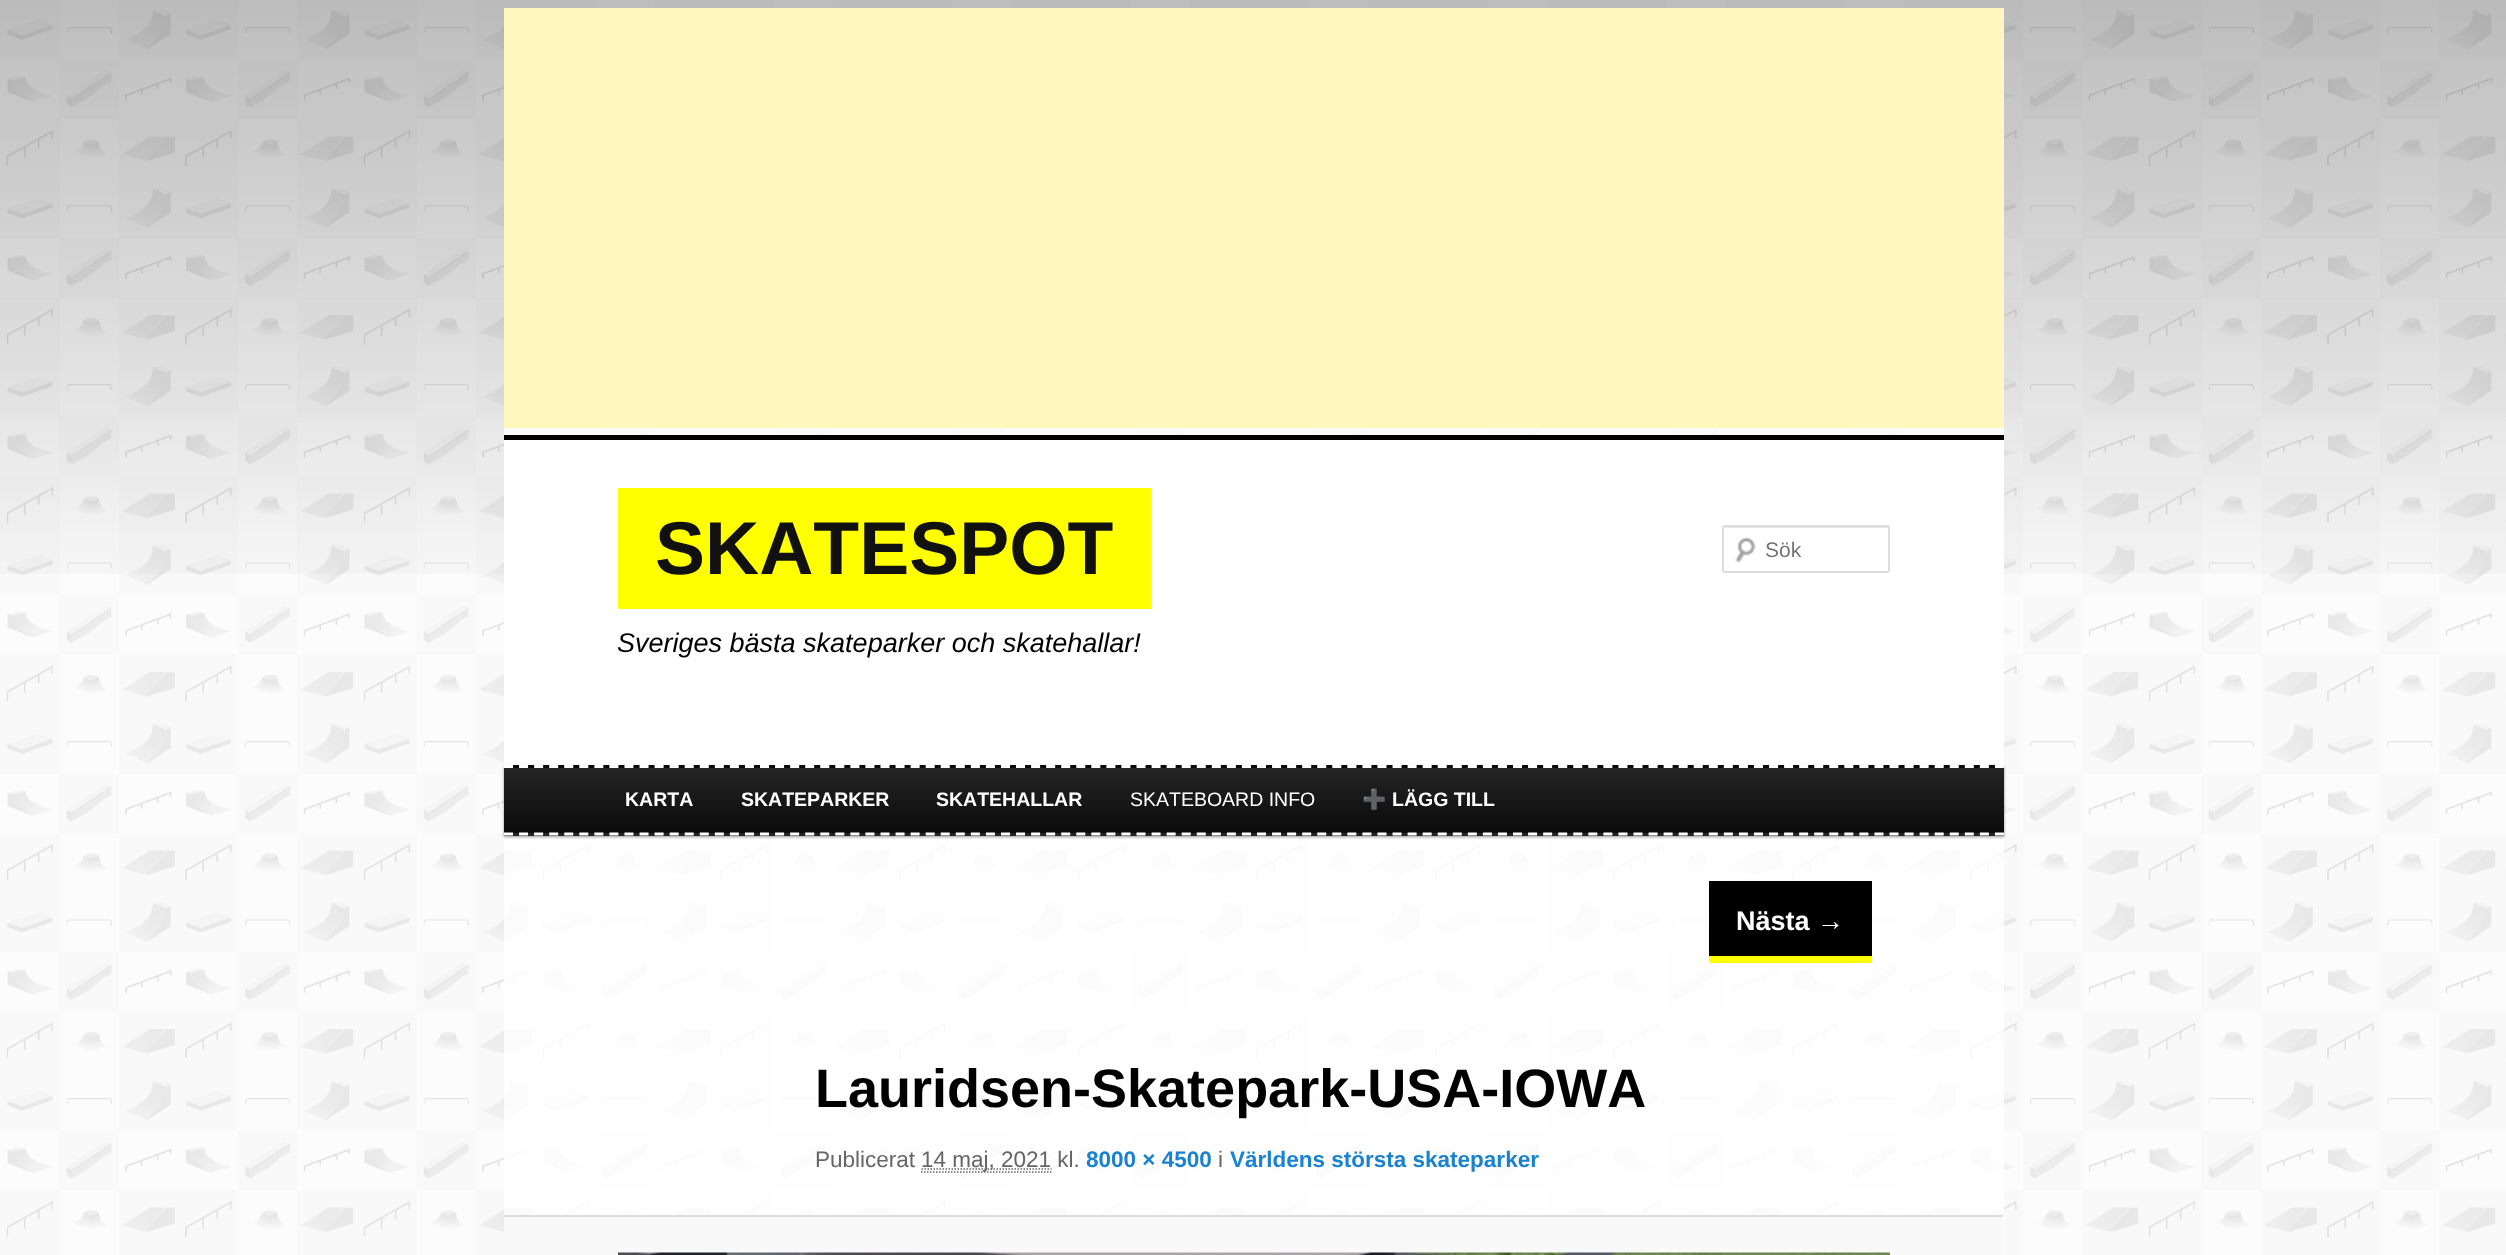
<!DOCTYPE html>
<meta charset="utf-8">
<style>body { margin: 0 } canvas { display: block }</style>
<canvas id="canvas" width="2506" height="1255"></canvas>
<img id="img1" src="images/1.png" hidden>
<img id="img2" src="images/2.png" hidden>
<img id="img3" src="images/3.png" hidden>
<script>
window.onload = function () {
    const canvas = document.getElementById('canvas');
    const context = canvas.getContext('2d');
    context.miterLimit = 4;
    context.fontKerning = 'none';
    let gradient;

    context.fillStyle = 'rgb(255, 255, 255)';
    context.fillRect(0, 0, 2506, 1255);
    context.drawImage(document.getElementById('img1'), 0, 0, 2506, 1255);
    gradient = context.createLinearGradient(1253, 0, 1253, 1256);
    gradient.addColorStop(0, 'rgba(0, 0, 0, 0.25)');
    gradient.addColorStop(0.5, 'rgba(0, 0, 0, 0)');
    context.fillStyle = gradient;
    context.fillRect(0, 0, 2506, 574);
    context.fillStyle = 'rgba(255, 255, 255, 0.8)';
    context.fillRect(504, 428, 1500, 827);
    context.fillStyle = 'rgb(255, 249, 192)';
    context.fillRect(504, 8, 1500, 420);
    context.fillStyle = 'rgb(255, 255, 255)';
    context.fillRect(504, 440, 1500, 323);
    context.fillStyle = 'rgb(0, 0, 0)';
    context.fillRect(504, 435, 1500, 5);
    context.fillStyle = 'rgb(255, 255, 0)';
    context.fillRect(618, 488, 533, 121);
    context.drawImage(document.getElementById('img2'), 1735, 537, 21, 26);
    context.fillStyle = 'rgb(230, 230, 230)';
    context.beginPath();
    context.moveTo(1725, 528);
    context.lineTo(1887, 528);
    context.bezierCurveTo(1888, 528, 1888, 529, 1888, 530);
    context.lineTo(1888, 572);
    context.bezierCurveTo(1889, 572, 1889, 571, 1889, 570);
    context.lineTo(1889, 528);
    context.bezierCurveTo(1889, 528, 1888, 527, 1888, 527);
    context.lineTo(1726, 527);
    context.bezierCurveTo(1725, 527, 1724, 528, 1724, 528);
    context.lineTo(1724, 530);
    context.bezierCurveTo(1724, 529, 1724, 528, 1725, 528);
    context.closePath();
    context.fill();
    context.beginPath();
    context.roundRect(1723, 526, 166, 46, 2);
    context.strokeStyle = 'rgb(221, 221, 221)';
    context.lineWidth = 2;
    context.stroke();
    context.fillStyle = 'rgba(0, 0, 0, 0.4)';
    context.filter = 'blur(1.5px)';
    context.beginPath();
    context.rect(504, 767, 1500, 70);
    context.fill();
    context.filter = 'none';
    gradient = context.createLinearGradient(1254, 703, 1254, 768);
    gradient.addColorStop(0, 'rgb(37, 37, 37)');
    gradient.addColorStop(1, 'rgb(10, 10, 10)');
    context.fillStyle = gradient;
    context.fillRect(513, 765, 1491, 3);
    gradient = context.createLinearGradient(1254, 768, 1254, 833);
    gradient.addColorStop(0, 'rgb(37, 37, 37)');
    gradient.addColorStop(1, 'rgb(10, 10, 10)');
    context.fillStyle = gradient;
    context.fillRect(504, 768, 1500, 65);
    gradient = context.createLinearGradient(1254, 832, 1254, 897);
    gradient.addColorStop(0, 'rgb(37, 37, 37)');
    gradient.addColorStop(1, 'rgb(10, 10, 10)');
    context.fillStyle = gradient;
    context.fillRect(504, 833, 1500, 3);
    context.beginPath();
    context.moveTo(504, 766.5);
    context.lineTo(2004, 766.5);
    context.strokeStyle = 'rgb(255, 255, 255)';
    context.lineWidth = 3;
    context.setLineDash([9, 6.06]);
    context.stroke();
    context.beginPath();
    context.moveTo(504, 834);
    context.lineTo(2004, 834);
    context.stroke();
    context.fillStyle = 'rgb(0, 0, 0)';
    context.fillRect(1709, 881, 163, 75);
    context.fillStyle = 'rgb(255, 255, 0)';
    context.fillRect(1709, 956, 163, 7);
    context.beginPath();
    context.moveTo(921, 1172);
    context.lineTo(1051.5, 1172);
    context.strokeStyle = 'rgb(102, 102, 102)';
    context.lineWidth = 1.5;
    context.setLineDash([1.5, 1.5]);
    context.stroke();
    context.beginPath();
    context.moveTo(921.5, 1169);
    context.lineTo(1051.5, 1169);
    context.stroke();
    context.fillStyle = 'rgb(249, 249, 249)';
    context.fillRect(504, 1217, 1499, 38);
    context.fillStyle = 'rgb(221, 221, 221)';
    context.fillRect(504, 1215, 1499, 2);
    context.drawImage(document.getElementById('img3'), 618, 1252, 1272, 3);
    context.font = 'bold 75px Liberation Sans';
    context.fillStyle = 'rgb(17, 17, 17)';
    context.fillText('SKATESPOT', 655, 574);
    context.font = 'italic 27px Liberation Sans';
    context.fillStyle = 'rgb(0, 0, 0)';
    context.fillText('Sveriges bästa skateparker och skatehallar!', 617, 652);
    context.font = '21px Liberation Sans';
    context.fillStyle = 'rgb(117, 117, 117)';
    context.fillText('Sök', 1765, 557);
    context.font = 'bold 19.5px Liberation Sans';
    context.fillStyle = 'rgb(255, 255, 255)';
    context.fillText('KARTA', 625, 806);
    context.fillText('SKATEPARKER', 741, 806);
    context.fillText('SKATEHALLAR', 936, 806);
    context.font = '19.5px Liberation Sans';
    context.fillText('SKATEBOARD INFO', 1130, 806);
    context.font = 'bold 19.5px Noto Color Emoji';
    context.fillText('➕', 1362, 806);
    context.font = 'bold 19.5px Liberation Sans';
    context.fillText('LÄGG TILL', 1392, 806);
    context.font = 'bold 27px Liberation Sans';
    context.fillText('Nästa →', 1736, 930);
    context.font = 'bold 54px Liberation Sans';
    context.fillStyle = 'rgb(0, 0, 0)';
    context.fillText('Lauridsen-Skatepark-USA-IOWA', 815, 1107);
    context.font = '22.5px Liberation Sans';
    context.fillStyle = 'rgb(102, 102, 102)';
    context.fillText('Publicerat', 815, 1167);
    context.fillText('14 maj, 2021 kl.', 921, 1167);
    context.font = 'bold 22.5px Liberation Sans';
    context.fillStyle = 'rgb(25, 130, 209)';
    context.fillText('8000 × 4500', 1086, 1167);
    context.font = '22.5px Liberation Sans';
    context.fillStyle = 'rgb(102, 102, 102)';
    context.fillText('i', 1218, 1167);
    context.font = 'bold 22.5px Liberation Sans';
    context.fillStyle = 'rgb(25, 130, 209)';
    context.fillText('Världens största skateparker', 1230, 1167);
};
</script>
